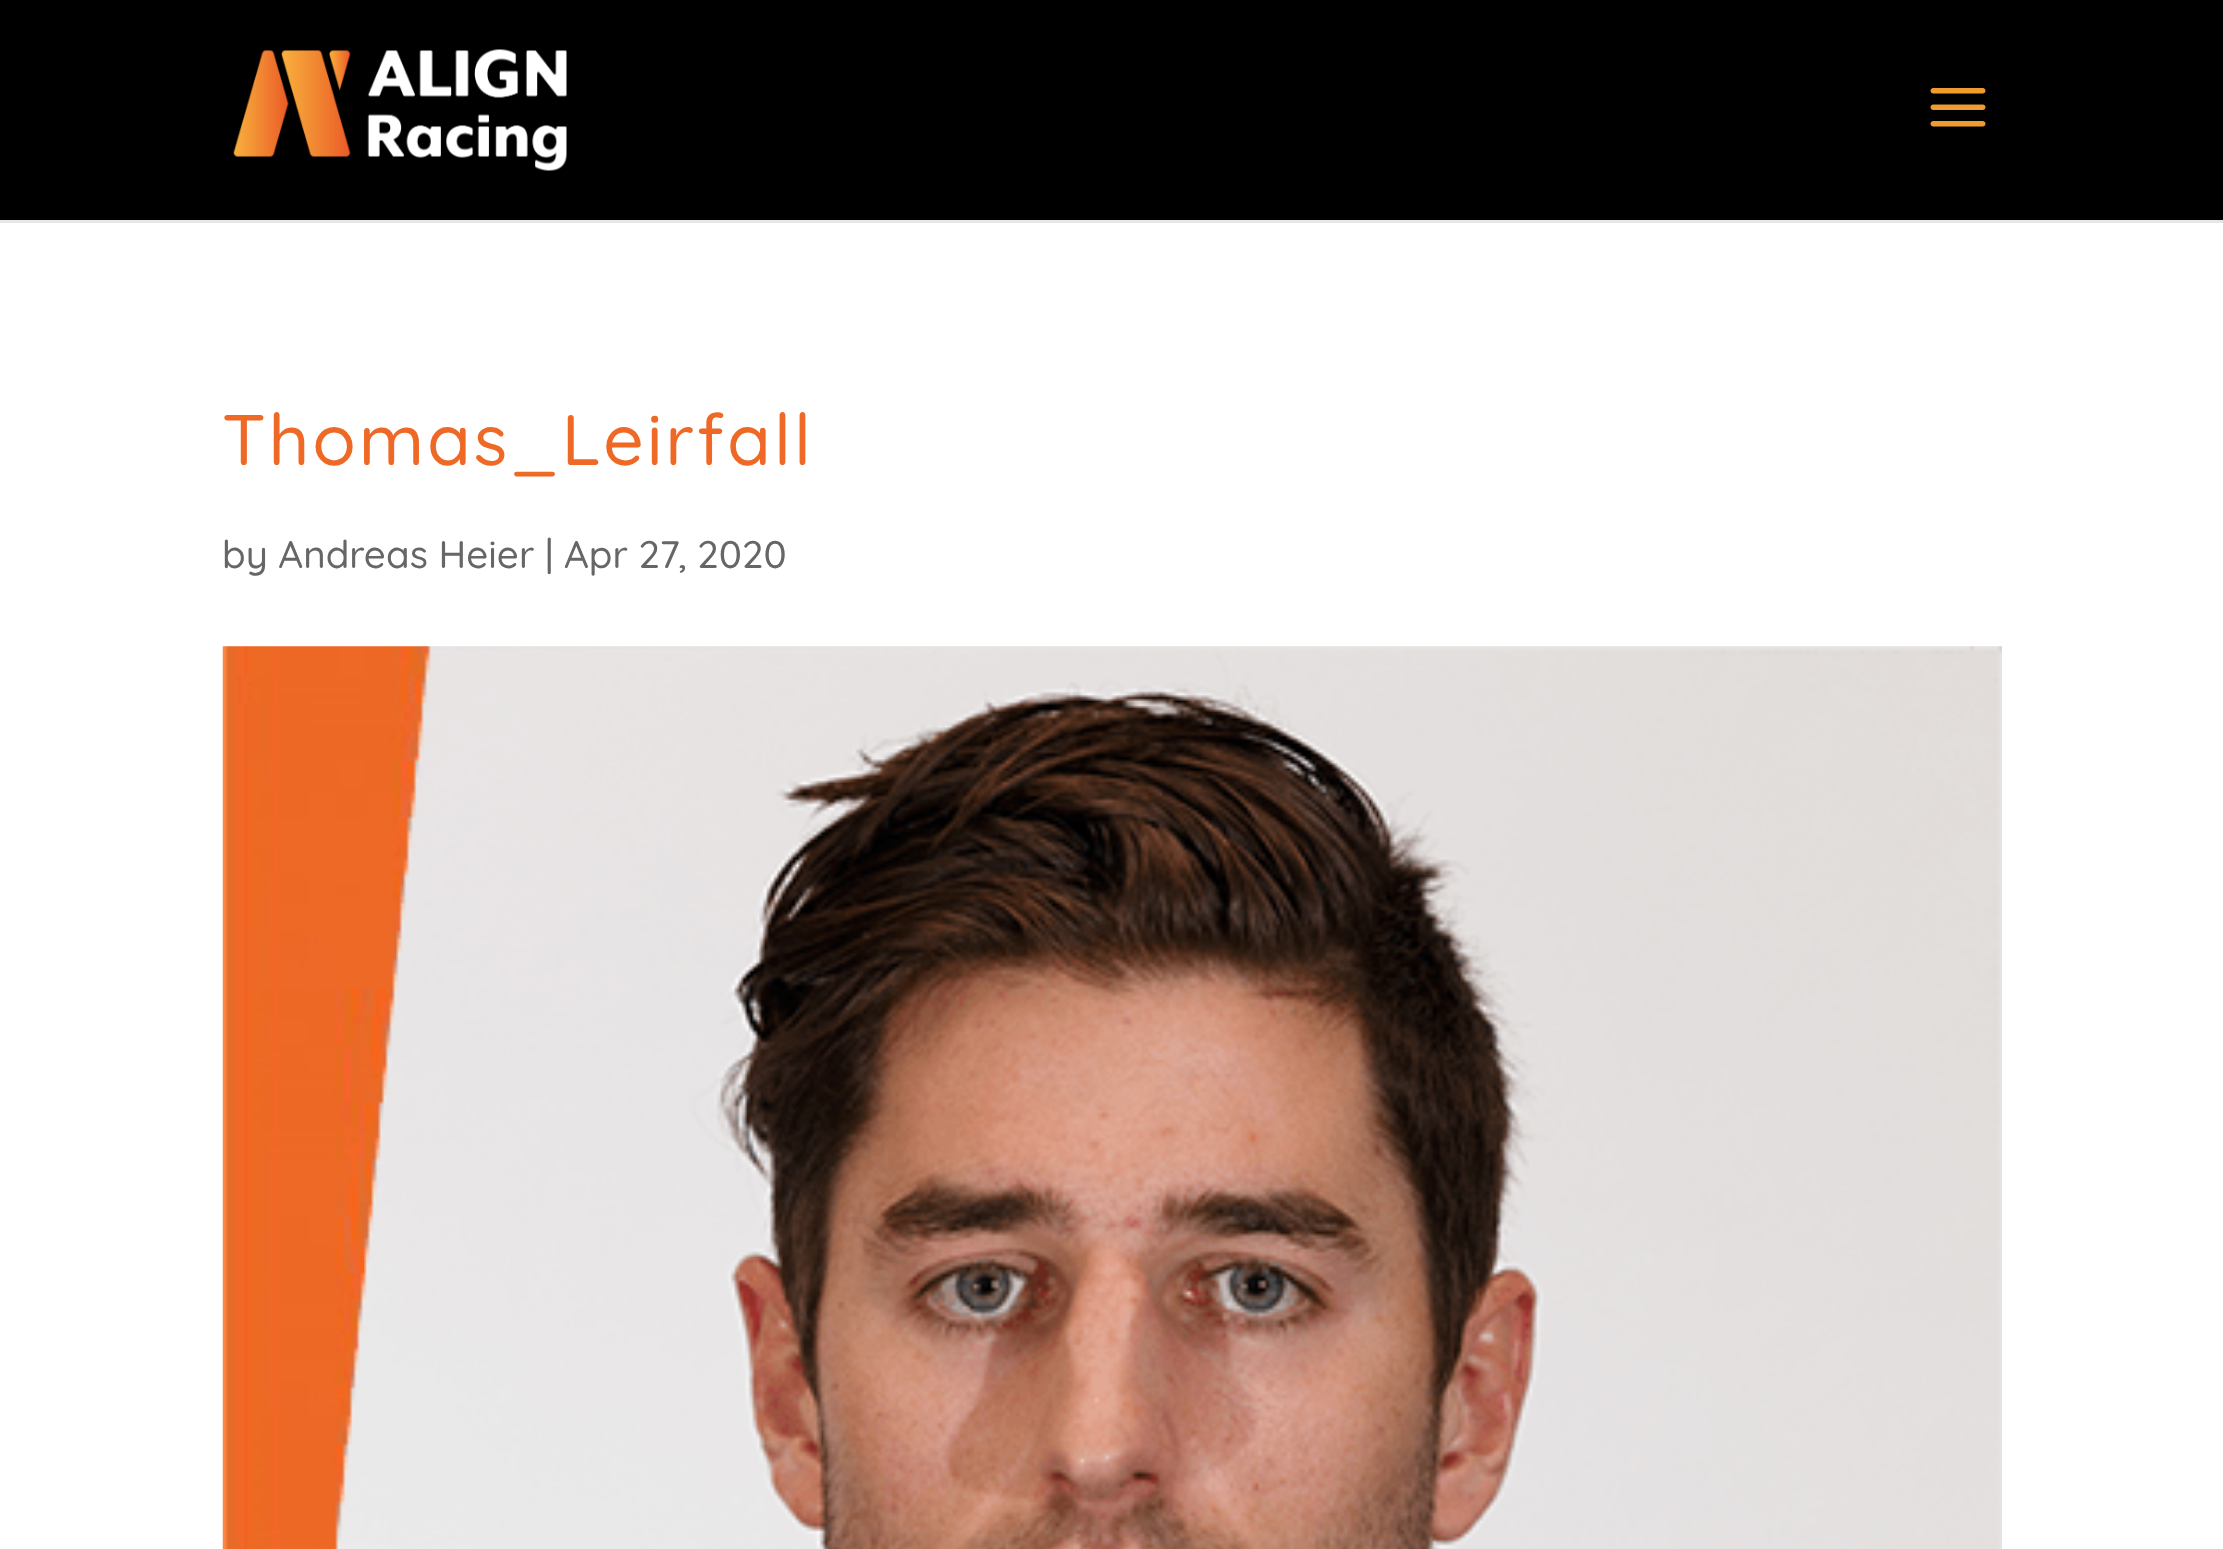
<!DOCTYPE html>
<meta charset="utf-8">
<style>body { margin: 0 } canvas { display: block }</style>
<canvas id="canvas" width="2223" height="1549"></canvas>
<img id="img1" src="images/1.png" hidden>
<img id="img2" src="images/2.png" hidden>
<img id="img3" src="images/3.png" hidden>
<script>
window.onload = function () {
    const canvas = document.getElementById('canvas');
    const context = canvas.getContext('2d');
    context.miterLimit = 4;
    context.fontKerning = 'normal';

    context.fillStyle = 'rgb(255, 255, 255)';
    context.fillRect(0, 0, 2223, 1549);
    context.fillStyle = 'rgb(230, 230, 230)';
    context.beginPath();
    context.moveTo(0, 220);
    context.lineTo(0, 223);
    context.lineTo(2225, 223);
    context.lineTo(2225, 3);
    context.lineTo(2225, 220);
    context.closePath();
    context.fill();
    context.fillStyle = 'rgb(0, 0, 0)';
    context.fillRect(0, 0, 2223, 220);
    context.drawImage(document.getElementById('img1'), 233, 49, 334, 122);
    context.drawImage(document.getElementById('img2'), 1930, 88, 56, 39);
    context.drawImage(document.getElementById('img3'), 222, 646, 1780, 903);
    context.letterSpacing = '2.75px';
    context.font = '500 71.5px Quicksand';
    context.fillStyle = 'rgb(239, 105, 38)';
    context.fillText('Thomas_Leirfall', 222, 465);
    context.letterSpacing = '0px';
    context.font = '500 38.5px Quicksand';
    context.fillStyle = 'rgb(102, 102, 102)';
    context.fillText('by Andreas Heier | Apr 27, 2020', 222, 568);
};
</script>
